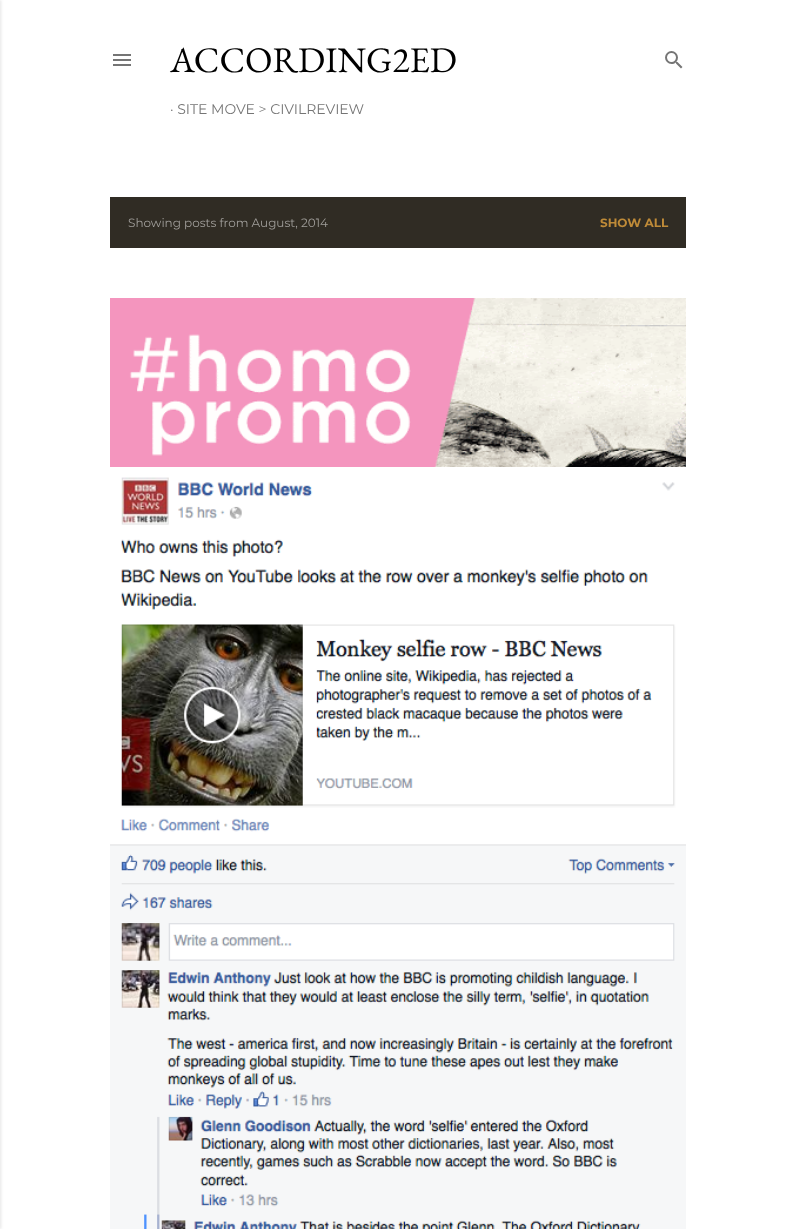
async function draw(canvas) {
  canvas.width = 796
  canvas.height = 1229
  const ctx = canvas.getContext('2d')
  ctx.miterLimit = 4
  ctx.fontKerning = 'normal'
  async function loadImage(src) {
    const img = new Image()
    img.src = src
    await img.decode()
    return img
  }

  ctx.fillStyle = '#fff'
  ctx.fillRect(0, 0, 796, 1229)
  ctx.fillStyle = '#0000001a'
  ctx.filter = 'blur(1.5px)'
  ctx.beginPath()
  ctx.rect(-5, 0, 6, 1229)
  ctx.fill()
  ctx.filter = 'none'
  ctx.drawImage(await loadImage('image0.png'), 113, 54, 18, 12)
  ctx.font = '36px EB Garamond'
  ctx.fillStyle = '#000'
  ctx.fillText('ACCORDING2ED', 170, 72)
  ctx.font = '14px Montserrat'
  ctx.fillStyle = '#757575'
  ctx.fillText('· SITE MOVE > CIVILREVIEW', 170, 114)
  ctx.drawImage(await loadImage('image1.png'), 665, 51, 18, 18)
  ctx.fillStyle = '#302c24'
  ctx.fillRect(110, 197, 576, 51)
  ctx.font = '12px Montserrat'
  ctx.fillStyle = '#a09e9a'
  ctx.fillText('Showing posts from August, 2014', 128, 227)
  ctx.font = 'bold 12px Montserrat'
  ctx.fillStyle = '#bf8b38'
  ctx.fillText('SHOW ALL', 600, 227)
  ctx.drawImage(await loadImage('image2.png'), 110, 298, 576, 169)
  ctx.drawImage(await loadImage('image3.png'), 110, 467, 576, 762)
}

draw(document.querySelector('canvas'))
